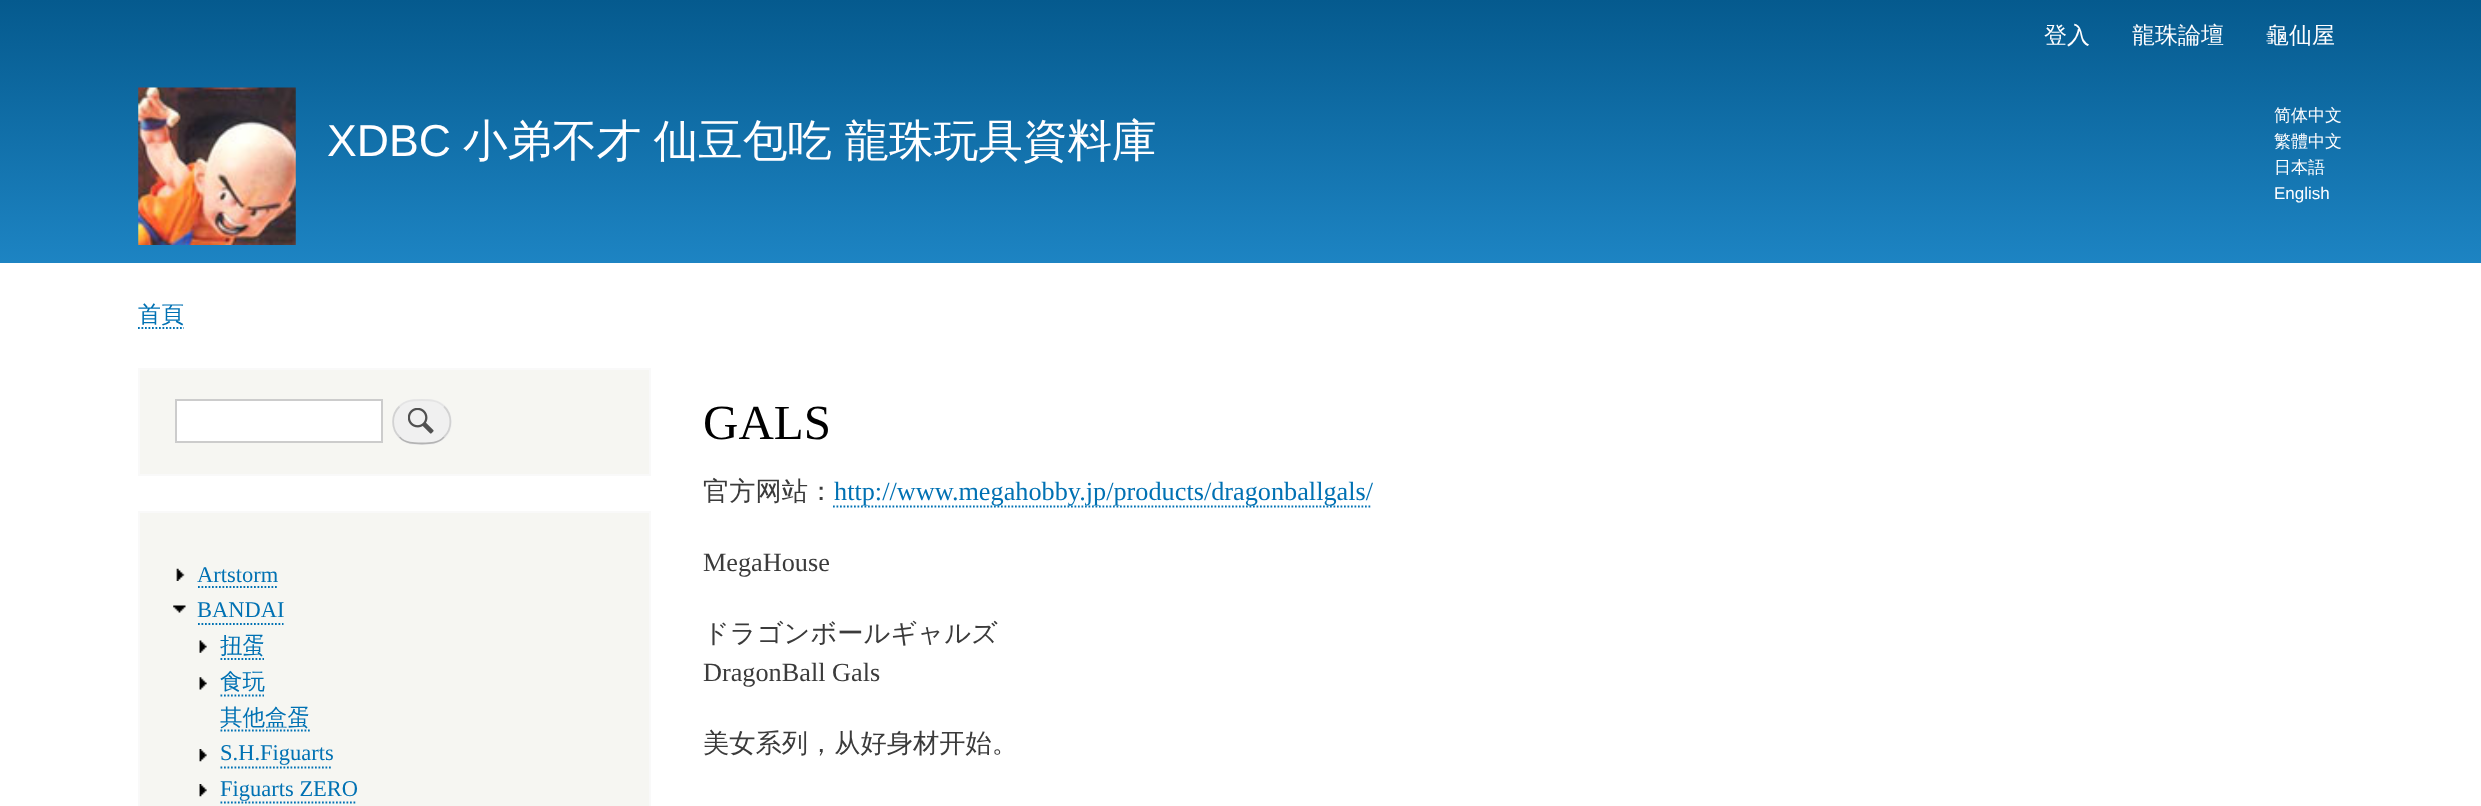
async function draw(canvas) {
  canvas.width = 2481
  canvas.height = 806
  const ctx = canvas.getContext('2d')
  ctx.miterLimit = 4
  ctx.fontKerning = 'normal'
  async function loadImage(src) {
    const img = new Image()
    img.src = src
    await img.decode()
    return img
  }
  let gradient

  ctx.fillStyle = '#fff'
  ctx.fillRect(0, 0, 2481, 806)
  gradient = ctx.createLinearGradient(1241, 0, 1241, 263)
  gradient.addColorStop(0, '#055a8e')
  gradient.addColorStop(1, '#1d84c3')
  ctx.fillStyle = gradient
  ctx.fillRect(0, 0, 2481, 263)
  ctx.font = '500 23px WenQuanYi Zen Hei'
  ctx.fillStyle = '#fffeff'
  ctx.fillText('登入', 2044, 43)
  ctx.fillText('龍珠論壇', 2132, 43)
  ctx.fillText('龜仙屋', 2266, 43)
  ctx.drawImage(await loadImage('image0.png'), 138, 87, 158, 158)
  ctx.font = '44.6px Liberation Sans'
  ctx.fillText('XDBC', 327, 156)
  ctx.wordSpacing = '-1px'
  ctx.font = '500 44.6px WenQuanYi Zen Hei'
  ctx.fillText('小弟不才 仙豆包吃 龍珠玩具資料庫', 463, 156)
  ctx.wordSpacing = '0px'
  ctx.font = '500 17px WenQuanYi Zen Hei'
  ctx.fillText('简体中文', 2274, 121)
  ctx.fillText('繁體中文', 2274, 147)
  ctx.fillText('日本語', 2274, 173)
  ctx.font = '17px Liberation Sans'
  ctx.fillText('English', 2274, 199)
  ctx.font = '500 23px WenQuanYi Zen Hei'
  ctx.fillStyle = '#0071b3'
  ctx.fillText('首頁', 138, 322)
  ctx.beginPath()
  ctx.moveTo(138, 328)
  ctx.lineTo(184, 328)
  ctx.strokeStyle = '#0071b3'
  ctx.lineWidth = 1.8
  ctx.setLineDash([1.75, 1.75])
  ctx.stroke()
  ctx.fillStyle = '#f6f6f2'
  ctx.beginPath()
  ctx.rect(139, 369, 511, 106)
  ctx.fill()
  ctx.strokeStyle = '#f9f9f9'
  ctx.lineWidth = 2
  ctx.setLineDash([])
  ctx.stroke()
  ctx.fillStyle = '#fff'
  ctx.beginPath()
  ctx.rect(176, 400, 206, 42)
  ctx.fill()
  ctx.strokeStyle = '#ccc'
  ctx.stroke()
  ctx.fillStyle = '#f0f0f0'
  ctx.beginPath()
  ctx.roundRect(392, 399, 60, 46, 23)
  ctx.fill()
  ctx.drawImage(await loadImage('image1.png'), 408, 408, 26, 26)
  ctx.beginPath()
  ctx.moveTo(399.5, 406.5)
  ctx.bezierCurveTo(405.5, 400, 413.5, 400, 422, 400)
  ctx.bezierCurveTo(430, 400, 438, 400, 444, 406.5)
  ctx.strokeStyle = '#e4e4e4'
  ctx.lineWidth = 1.8
  ctx.stroke()
  ctx.beginPath()
  ctx.moveTo(444, 406.5)
  ctx.bezierCurveTo(452.5, 414.5, 452.5, 429, 444, 437)
  ctx.strokeStyle = '#d2d2d2'
  ctx.stroke()
  ctx.beginPath()
  ctx.moveTo(444, 437)
  ctx.bezierCurveTo(438, 443.5, 430, 443.5, 422, 443.5)
  ctx.bezierCurveTo(413.5, 443.5, 405.5, 443.5, 399.5, 437)
  ctx.strokeStyle = '#b4b4b4'
  ctx.stroke()
  ctx.beginPath()
  ctx.moveTo(399.5, 437)
  ctx.bezierCurveTo(391, 429, 391, 414.5, 399.5, 406.5)
  ctx.strokeStyle = '#d2d2d2'
  ctx.stroke()
  ctx.fillStyle = '#f6f6f2'
  ctx.beginPath()
  ctx.rect(139, 512, 511, 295)
  ctx.fill()
  ctx.strokeStyle = '#f9f9f9'
  ctx.lineWidth = 2
  ctx.stroke()
  ctx.drawImage(await loadImage('image2.png'), 176, 568, 9, 13)
  ctx.font = '22.5px Liberation Serif'
  ctx.fillStyle = '#0071b3'
  ctx.fillText('Artstorm', 197, 582)
  ctx.beginPath()
  ctx.moveTo(198, 587)
  ctx.lineTo(278, 587)
  ctx.strokeStyle = '#0071b3'
  ctx.lineWidth = 1.8
  ctx.setLineDash([1.75, 1.75])
  ctx.stroke()
  ctx.drawImage(await loadImage('image3.png'), 173, 605, 13, 8)
  ctx.fillText('BANDAI', 197, 617)
  ctx.beginPath()
  ctx.moveTo(198, 624)
  ctx.lineTo(283.5, 624)
  ctx.stroke()
  ctx.drawImage(await loadImage('image4.png'), 199, 640, 8, 13)
  ctx.font = '500 22.5px WenQuanYi Zen Hei'
  ctx.fillText('扭蛋', 220, 653)
  ctx.beginPath()
  ctx.moveTo(220.5, 659)
  ctx.lineTo(264, 659)
  ctx.stroke()
  ctx.drawImage(await loadImage('image5.png'), 199, 677, 8, 13)
  ctx.fillText('食玩', 220, 689)
  ctx.beginPath()
  ctx.moveTo(220.5, 695.5)
  ctx.lineTo(264, 695.5)
  ctx.stroke()
  ctx.fillText('其他盒蛋', 220, 725)
  ctx.beginPath()
  ctx.moveTo(220.5, 730.5)
  ctx.lineTo(310, 730.5)
  ctx.stroke()
  ctx.drawImage(await loadImage('image6.png'), 199, 749, 8, 13)
  ctx.font = '22.5px Liberation Serif'
  ctx.fillText('S.H.Figuarts', 220, 760)
  ctx.beginPath()
  ctx.moveTo(220.5, 767.5)
  ctx.lineTo(332.5, 767.5)
  ctx.stroke()
  ctx.drawImage(await loadImage('image6.png'), 199, 784, 8, 13)
  ctx.fillText('Figuarts ZERO', 220, 796)
  ctx.beginPath()
  ctx.moveTo(220.5, 802.5)
  ctx.lineTo(357, 802.5)
  ctx.stroke()
  ctx.font = '49px Liberation Serif'
  ctx.fillStyle = '#000'
  ctx.fillText('GALS', 703, 439)
  ctx.font = '500 26.25px WenQuanYi Zen Hei'
  ctx.fillStyle = '#3b3b3b'
  ctx.fillText('官方网站：', 703, 500)
  ctx.beginPath()
  ctx.moveTo(833, 506.5)
  ctx.lineTo(1372, 506.5)
  ctx.stroke()
  ctx.font = '26.25px Liberation Serif'
  ctx.fillStyle = '#0071b3'
  ctx.fillText('http://www.megahobby.jp/products/dragonballgals/', 834, 500)
  ctx.fillStyle = '#3b3b3b'
  ctx.fillText('MegaHouse', 703, 571)
  ctx.font = '500 26.25px WenQuanYi Zen Hei'
  ctx.fillText('ドラゴンボールギャルズ', 703, 642)
  ctx.font = '26.25px Liberation Serif'
  ctx.fillText('DragonBall Gals', 703, 681)
  ctx.font = '500 26.25px WenQuanYi Zen Hei'
  ctx.fillText('美女系列，从好身材开始。', 703, 752)
}

draw(document.querySelector('canvas'))
